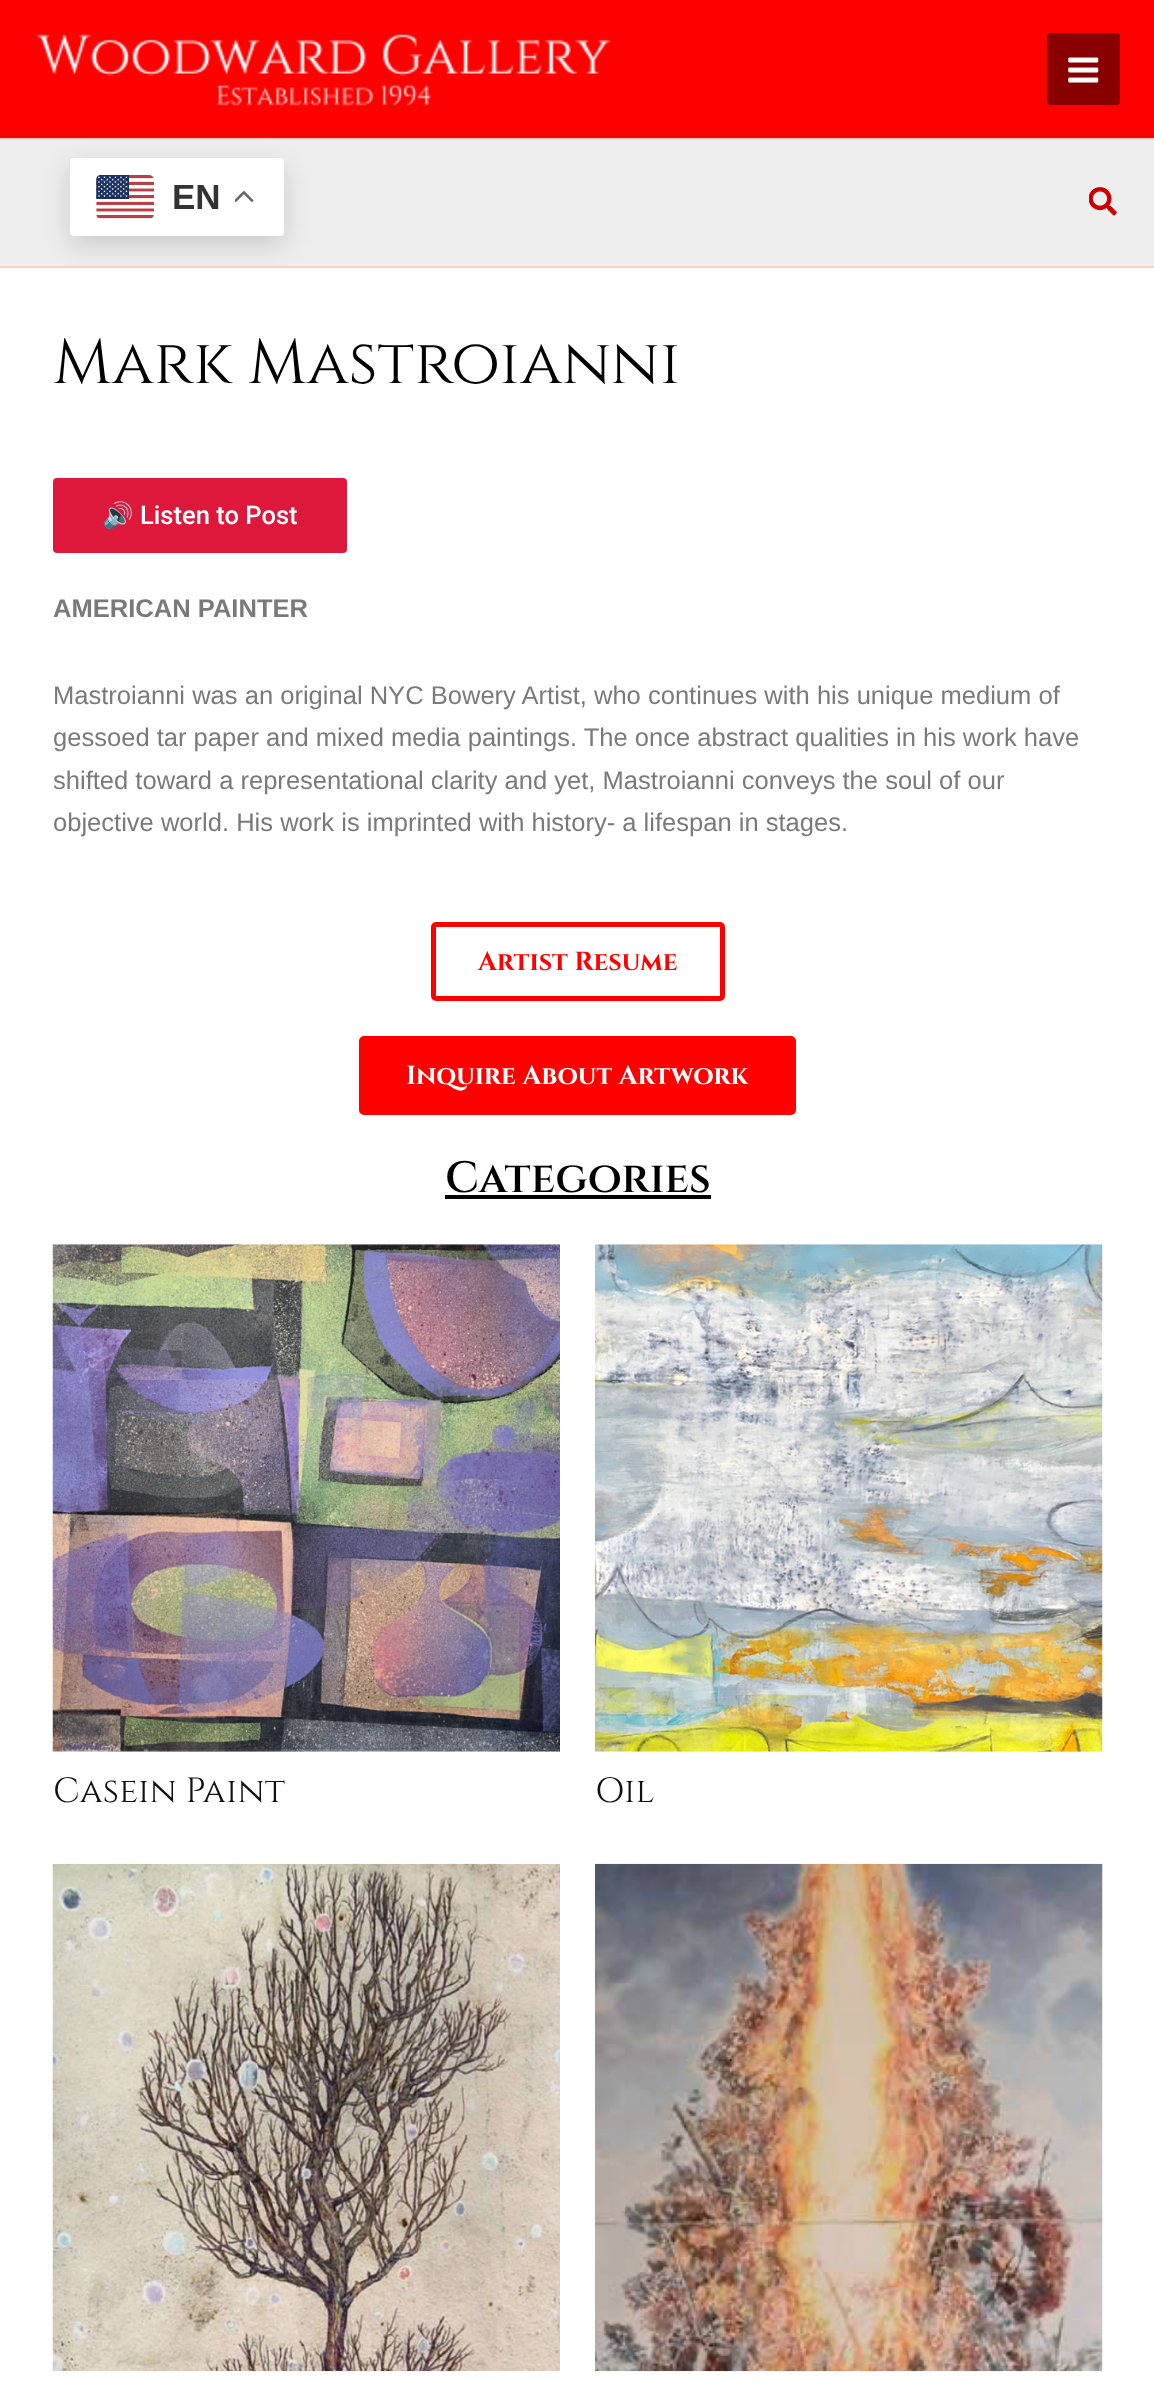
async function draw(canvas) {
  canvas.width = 1154
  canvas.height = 2395
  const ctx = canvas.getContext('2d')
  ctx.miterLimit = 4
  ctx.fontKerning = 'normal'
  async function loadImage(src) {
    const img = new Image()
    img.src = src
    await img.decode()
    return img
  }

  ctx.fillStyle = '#fff'
  ctx.fillRect(0, 0, 1154, 2395)
  ctx.fillStyle = '#eee'
  ctx.fillRect(0, 140, 1154, 126)
  ctx.fillStyle = '#ffd1bf'
  ctx.fillRect(0, 266, 1154, 2)
  ctx.fillStyle = '#00000026'
  ctx.filter = 'blur(13px)'
  ctx.beginPath()
  ctx.roundRect(70, 166, 214, 79, 4)
  ctx.fill()
  ctx.filter = 'none'
  ctx.fillStyle = '#fd0000'
  ctx.fillRect(0, 0, 1154, 138)
  ctx.fillStyle = '#ffd1bf'
  ctx.fillRect(0, 138, 1154, 2)
  ctx.drawImage(await loadImage('image0.png'), 36, 34, 575, 72)
  ctx.fillStyle = '#890000'
  ctx.beginPath()
  ctx.roundRect(1047, 33, 73, 72, 4)
  ctx.fill()
  ctx.drawImage(await loadImage('image1.png'), 1068, 57, 31, 26)
  ctx.fillStyle = '#fff'
  ctx.beginPath()
  ctx.roundRect(70, 158, 214, 78, 4)
  ctx.fill()
  ctx.drawImage(await loadImage('image2.png'), 96, 175, 58, 44)
  ctx.font = 'bold 35px Liberation Sans'
  ctx.fillStyle = '#333'
  ctx.fillText('EN', 172, 209)
  ctx.drawImage(await loadImage('image3.png'), 235, 190, 19, 12)
  ctx.drawImage(await loadImage('image4.png'), 1089, 187, 28, 29)
  ctx.font = '63px Cinzel'
  ctx.fillStyle = '#000'
  ctx.fillText('Mark Mastroianni', 53, 383)
  ctx.fillStyle = '#dd183b'
  ctx.beginPath()
  ctx.roundRect(53, 478, 294, 75, 4)
  ctx.fill()
  ctx.font = '25.55px Noto Color Emoji'
  ctx.fillStyle = '#fff'
  ctx.fillText('🔊', 102, 524)
  ctx.font = '500 25.55px Roboto'
  ctx.fillText('Listen to Post', 140, 524)
  ctx.font = 'bold 25.55px Liberation Sans'
  ctx.fillStyle = '#7a7a7a'
  ctx.fillText('AMERICAN PAINTER', 53, 617)
  ctx.font = '25.55px Liberation Sans'
  ctx.fillText('Mastroianni was an original NYC Bowery Artist, who continues with his unique medium of', 53, 704)
  ctx.fillText('gessoed tar paper and mixed media paintings. The once abstract qualities in his work have', 53, 746)
  ctx.fillText('shifted toward a representational clarity and yet, Mastroianni conveys the soul of our', 53, 789)
  ctx.fillText('objective world. His work is imprinted with history- a lifespan in stages.', 53, 831)
  ctx.beginPath()
  ctx.roundRect(433.5, 924.5, 289, 74, 2.5)
  ctx.strokeStyle = '#f00'
  ctx.lineWidth = 5
  ctx.stroke()
  ctx.font = 'bold 26.25px Cinzel'
  ctx.fillStyle = '#f00'
  ctx.fillText('Artist Resume', 478, 970)
  ctx.beginPath()
  ctx.roundRect(361.5, 1038.5, 432, 74, 2.5)
  ctx.fill()
  ctx.stroke()
  ctx.fillStyle = '#fff'
  ctx.fillText('Inquire About Artwork', 406, 1084)
  ctx.font = '600 43.75px Cinzel'
  ctx.fillStyle = '#000'
  ctx.fillText('Categories', 445, 1192)
  ctx.fillRect(445, 1195, 266, 4)
  ctx.drawImage(await loadImage('image5.png'), 52, 1244, 508, 508)
  ctx.font = '35px Cinzel'
  ctx.fillStyle = '#111'
  ctx.fillText('Casein Paint', 53, 1802)
  ctx.drawImage(await loadImage('image6.png'), 595, 1244, 508, 508)
  ctx.fillText('Oil', 595, 1802)
  ctx.drawImage(await loadImage('image7.png'), 52, 1863, 508, 509)
  ctx.drawImage(await loadImage('image8.png'), 595, 1863, 508, 509)
}

draw(document.querySelector('canvas'))
